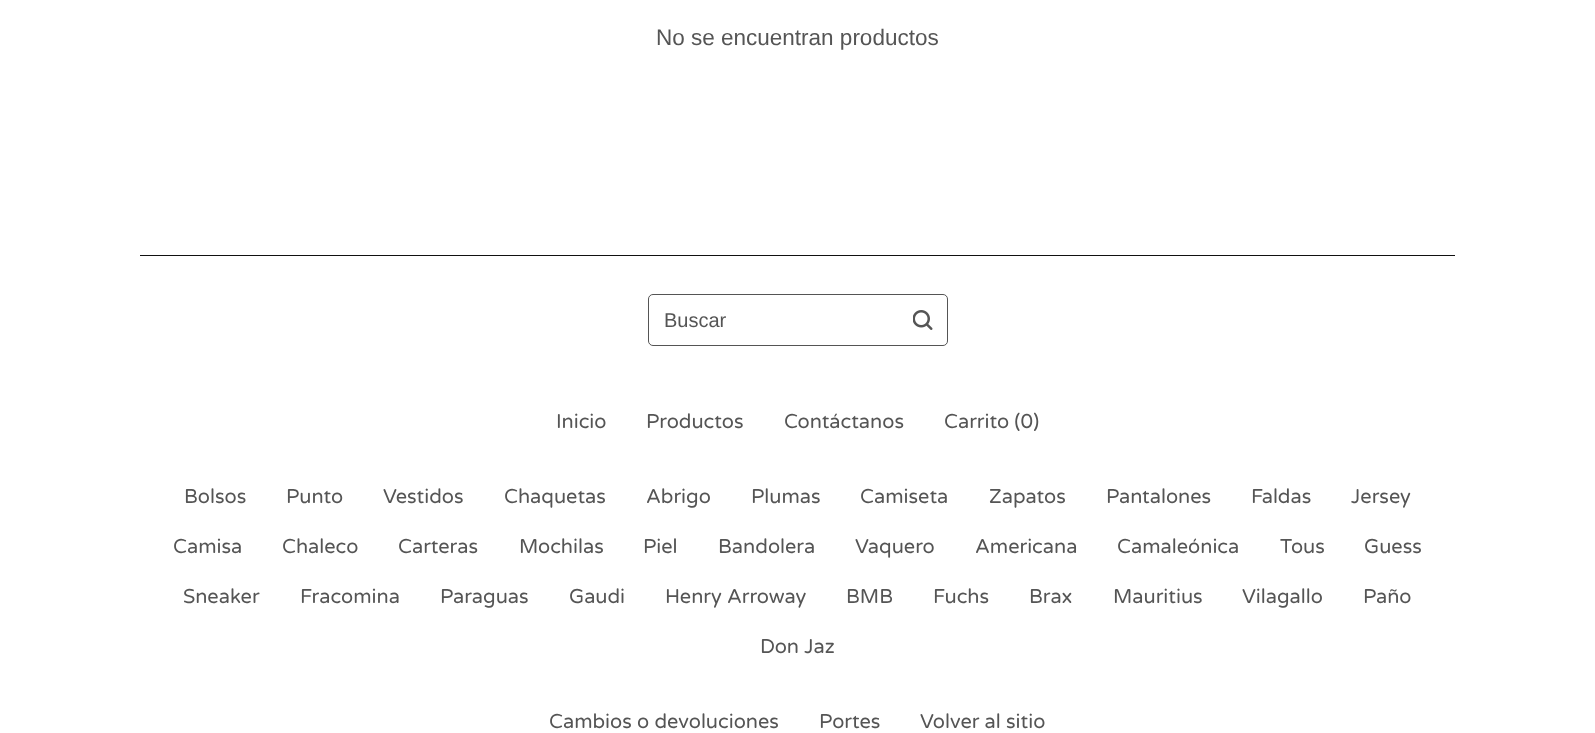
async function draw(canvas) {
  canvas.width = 1595
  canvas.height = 733
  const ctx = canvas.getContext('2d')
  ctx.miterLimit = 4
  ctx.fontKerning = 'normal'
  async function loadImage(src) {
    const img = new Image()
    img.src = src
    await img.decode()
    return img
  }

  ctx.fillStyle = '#fff'
  ctx.fillRect(0, 0, 1595, 733)
  ctx.font = '22.5px Liberation Sans'
  ctx.fillStyle = '#555'
  ctx.fillText('No se encuentran productos', 656, 45)
  ctx.fillStyle = '#111'
  ctx.fillRect(140, 255, 1315, 1)
  ctx.beginPath()
  ctx.roundRect(648.5, 294.5, 299, 51, 4.5)
  ctx.strokeStyle = '#555'
  ctx.stroke()
  ctx.font = '20px Liberation Sans'
  ctx.fillStyle = '#555'
  ctx.fillText('Buscar', 664, 327)
  ctx.drawImage(await loadImage('image0.png'), 913, 310, 20, 20)
  ctx.font = '20px Varela Round'
  ctx.fillText('Inicio', 556, 428)
  ctx.fillText('Productos', 646, 428)
  ctx.fillText('Contáctanos', 784, 428)
  ctx.fillText('Carrito (0)', 944, 428)
  ctx.fillText('Bolsos', 184, 503)
  ctx.fillText('Punto', 286, 503)
  ctx.fillText('Vestidos', 383, 503)
  ctx.fillText('Chaquetas', 504, 503)
  ctx.fillText('Abrigo', 646, 503)
  ctx.fillText('Plumas', 751, 503)
  ctx.fillText('Camiseta', 860, 503)
  ctx.fillText('Zapatos', 989, 503)
  ctx.fillText('Pantalones', 1106, 503)
  ctx.fillText('Faldas', 1251, 503)
  ctx.fillText('Jersey', 1351, 503)
  ctx.fillText('Camisa', 173, 553)
  ctx.fillText('Chaleco', 282, 553)
  ctx.fillText('Carteras', 398, 553)
  ctx.fillText('Mochilas', 519, 553)
  ctx.fillText('Piel', 643, 553)
  ctx.fillText('Bandolera', 718, 553)
  ctx.fillText('Vaquero', 855, 553)
  ctx.fillText('Americana', 975, 553)
  ctx.fillText('Camaleónica', 1117, 553)
  ctx.fillText('Tous', 1280, 553)
  ctx.fillText('Guess', 1364, 553)
  ctx.fillText('Sneaker', 183, 603)
  ctx.fillText('Fracomina', 300, 603)
  ctx.fillText('Paraguas', 440, 603)
  ctx.fillText('Gaudi', 569, 603)
  ctx.fillText('Henry Arroway', 665, 603)
  ctx.fillText('BMB', 846, 603)
  ctx.fillText('Fuchs', 933, 603)
  ctx.fillText('Brax', 1029, 603)
  ctx.fillText('Mauritius', 1113, 603)
  ctx.fillText('Vilagallo', 1242, 603)
  ctx.fillText('Paño', 1363, 603)
  ctx.fillText('Don Jaz', 760, 653)
  ctx.fillText('Cambios o devoluciones', 549, 728)
  ctx.fillText('Portes', 819, 728)
  ctx.fillText('Volver al sitio', 920, 728)
}

draw(document.querySelector('canvas'))
